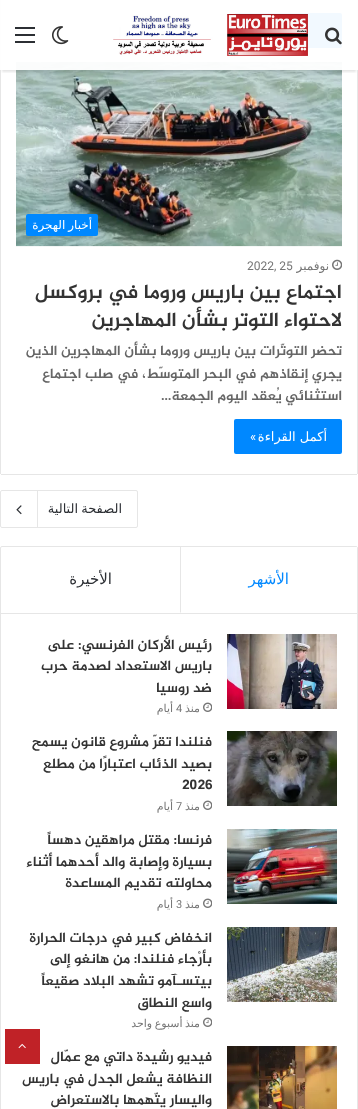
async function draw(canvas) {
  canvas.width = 358
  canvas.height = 1109
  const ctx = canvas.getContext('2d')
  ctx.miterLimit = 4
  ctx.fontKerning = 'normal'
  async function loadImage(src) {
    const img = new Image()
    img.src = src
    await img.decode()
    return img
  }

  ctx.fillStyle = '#fff'
  ctx.fillRect(0, 0, 358, 1109)
  ctx.fillStyle = '#e6e6e6'
  ctx.fillRect(357, 0, 1, 474)
  ctx.fillRect(0, 0, 1, 474)
  ctx.fillStyle = '#08f'
  ctx.beginPath()
  ctx.roundRect(234, 13, 108, 35, 2)
  ctx.fill()
  ctx.drawImage(await loadImage('image3.png'), 16, 62, 326, 185)
  ctx.save()
  ctx.beginPath()
  ctx.rect(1, 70, 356, 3)
  ctx.clip()
  ctx.fillStyle = '#0000001a'
  ctx.filter = 'blur(1px)'
  ctx.beginPath()
  ctx.rect(2, 6, 354, 66)
  ctx.fill()
  ctx.filter = 'none'
  ctx.restore()
  ctx.fillStyle = '#fffffff2'
  ctx.fillRect(0, 0, 358, 70)
  ctx.drawImage(await loadImage('image0.png'), 325, 27, 17, 18)
  ctx.drawImage(await loadImage('image1.png'), 113, 14, 195, 42)
  ctx.drawImage(await loadImage('image2.png'), 52, 26, 17, 19)
  ctx.fillStyle = '#2c2f34'
  ctx.fillRect(15, 34, 20, 2)
  ctx.fillRect(15, 27, 20, 2)
  ctx.fillRect(15, 41, 20, 2)
  ctx.fillStyle = '#e6e6e6'
  ctx.fillRect(1, 474, 356, 1)
  ctx.fillStyle = '#08f'
  ctx.beginPath()
  ctx.roundRect(26, 214, 72, 22, 2)
  ctx.fill()
  ctx.wordSpacing = '-1px'
  ctx.direction = 'rtl'
  ctx.font = '12px DejaVu Sans'
  ctx.fillStyle = '#fff'
  ctx.fillText('أخبار الهجرة', 92, 229)
  ctx.drawImage(await loadImage('image4.png'), 332, 259, 10, 11)
  ctx.wordSpacing = '0px'
  ctx.fillStyle = '#767676'
  ctx.fillText('نوفمبر', 329, 270)
  ctx.direction = 'ltr'
  ctx.font = '12px Roboto'
  ctx.fillText('2022, 25', 247, 270)
  ctx.direction = 'rtl'
  ctx.font = 'bold 20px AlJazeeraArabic'
  ctx.fillStyle = '#333'
  ctx.fillText('اجتماع بين باريس وروما في بروكسل', 342, 298)
  ctx.fillText('لاحتواء التوتر بشأن المهاجرين', 342, 326)
  ctx.font = 'bold 14px AlJazeeraArabic'
  ctx.fillStyle = '#666'
  ctx.fillText('تحضر التوتّرات بين باريس وروما بشأن المهاجرين الذين', 342, 355)
  ctx.fillText('يجري إنقاذهم في البحر المتوسّط، في صلب اجتماع', 342, 378)
  ctx.fillText('استثنائي يُعقد اليوم الجمعة…', 342, 400)
  ctx.fillStyle = '#08f'
  ctx.beginPath()
  ctx.roundRect(234, 419, 108, 35, 2)
  ctx.fill()
  ctx.font = '13px DejaVu Sans'
  ctx.fillStyle = '#fff'
  ctx.fillText('أكمل القراءة', 327, 441)
  ctx.font = '13px Roboto'
  ctx.fillText('»', 256, 441)
  ctx.beginPath()
  ctx.roundRect(0.5, 490.5, 137, 37, 1.5)
  ctx.strokeStyle = '#e6e6e6'
  ctx.stroke()
  ctx.wordSpacing = '-1px'
  ctx.font = '13px DejaVu Sans'
  ctx.fillStyle = '#2c2f34'
  ctx.fillText('الصفحة التالية', 122, 513)
  ctx.fillStyle = '#e6e6e6'
  ctx.fillRect(37, 491, 1, 36)
  ctx.drawImage(await loadImage('image5.png'), 16, 505, 6, 10)
  ctx.beginPath()
  ctx.roundRect(0.5, 546.5, 357, 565, 1.5)
  ctx.stroke()
  ctx.fillRect(1, 613, 356, 1)
  ctx.fillStyle = '#fff'
  ctx.fillRect(356, 547, 1, 1)
  ctx.fillStyle = '#e6e6e6'
  ctx.beginPath()
  ctx.moveTo(180, 613)
  ctx.lineTo(180, 547)
  ctx.lineTo(181, 547)
  ctx.lineTo(181, 612)
  ctx.closePath()
  ctx.fill()
  ctx.wordSpacing = '0px'
  ctx.font = '15px DejaVu Sans'
  ctx.fillStyle = '#08f'
  ctx.fillText('الأشهر', 289, 584)
  ctx.fillStyle = '#2c2f34'
  ctx.fillText('الأخيرة', 112, 584)
  ctx.drawImage(await loadImage('image6.png'), 227, 634, 110, 75)
  ctx.font = 'bold 14px AlJazeeraArabic'
  ctx.fillStyle = '#333'
  ctx.fillText('رئيس الأركان الفرنسي: على', 212, 649)
  ctx.fillText('باريس الاستعداد لصدمة حرب', 212, 670)
  ctx.fillText('ضد روسيا', 212, 692)
  ctx.drawImage(await loadImage('image7.png'), 203, 702, 9, 10)
  ctx.font = '11px DejaVu Sans'
  ctx.fillStyle = '#767676'
  ctx.fillText('منذ', 200, 712)
  ctx.direction = 'ltr'
  ctx.font = '11px Roboto'
  ctx.fillText('4', 176, 712)
  ctx.direction = 'rtl'
  ctx.font = '11px DejaVu Sans'
  ctx.fillText('أيام', 173, 712)
  ctx.drawImage(await loadImage('image8.png'), 227, 731, 110, 75)
  ctx.font = 'bold 14px AlJazeeraArabic'
  ctx.fillStyle = '#333'
  ctx.fillText('فنلندا تقرّ مشروع قانون يسمح', 212, 746)
  ctx.fillText('بصيد الذئاب اعتبارًا من مطلع', 212, 768)
  ctx.direction = 'ltr'
  ctx.fillText('2026', 182, 789)
  ctx.drawImage(await loadImage('image7.png'), 203, 800, 9, 10)
  ctx.direction = 'rtl'
  ctx.font = '11px DejaVu Sans'
  ctx.fillStyle = '#767676'
  ctx.fillText('منذ', 200, 810)
  ctx.direction = 'ltr'
  ctx.font = '11px Roboto'
  ctx.fillText('7', 176, 810)
  ctx.direction = 'rtl'
  ctx.font = '11px DejaVu Sans'
  ctx.fillText('أيام', 173, 810)
  ctx.drawImage(await loadImage('image9.png'), 227, 829, 110, 75)
  ctx.font = 'bold 14px AlJazeeraArabic'
  ctx.fillStyle = '#333'
  ctx.fillText('فرنسا: مقتل مراهقين دهساً', 212, 844)
  ctx.fillText('بسيارة وإصابة والد أحدهما أثناء', 212, 866)
  ctx.fillText('محاولته تقديم المساعدة', 212, 887)
  ctx.drawImage(await loadImage('image7.png'), 203, 898, 9, 10)
  ctx.font = '11px DejaVu Sans'
  ctx.fillStyle = '#767676'
  ctx.fillText('منذ', 200, 908)
  ctx.direction = 'ltr'
  ctx.font = '11px Roboto'
  ctx.fillText('3', 176, 908)
  ctx.direction = 'rtl'
  ctx.font = '11px DejaVu Sans'
  ctx.fillText('أيام', 173, 908)
  ctx.drawImage(await loadImage('image10.png'), 227, 927, 110, 75)
  ctx.font = 'bold 14px AlJazeeraArabic'
  ctx.fillStyle = '#333'
  ctx.fillText('انخفاض كبير في درجات الحرارة', 212, 942)
  ctx.fillText('بأرْجاء فنلندا: من هانغو إلى', 212, 963)
  ctx.fillText('بيتسـآمو تشهد البلاد صقيعاً', 212, 985)
  ctx.fillText('واسع النطاق', 212, 1007)
  ctx.drawImage(await loadImage('image7.png'), 203, 1017, 9, 10)
  ctx.wordSpacing = '-1px'
  ctx.font = '11px DejaVu Sans'
  ctx.fillStyle = '#767676'
  ctx.fillText('منذ أسبوع واحد', 200, 1027)
  ctx.drawImage(await loadImage('image11.png'), 227, 1046, 110, 63)
  ctx.wordSpacing = '0px'
  ctx.font = 'bold 14px AlJazeeraArabic'
  ctx.fillStyle = '#333'
  ctx.fillText('فيديو رشيدة داتي مع عمّال', 212, 1061)
  ctx.fillText('النظافة يشعل الجدل في باريس', 212, 1083)
  ctx.fillText('واليسار يتّهمها بالاستعراض', 212, 1104)
  ctx.fillStyle = '#c02227'
  ctx.fillRect(5, 1029, 35, 35)
  ctx.drawImage(await loadImage('image12.png'), 18, 1043, 8, 6)
}

draw(document.querySelector('canvas'))
